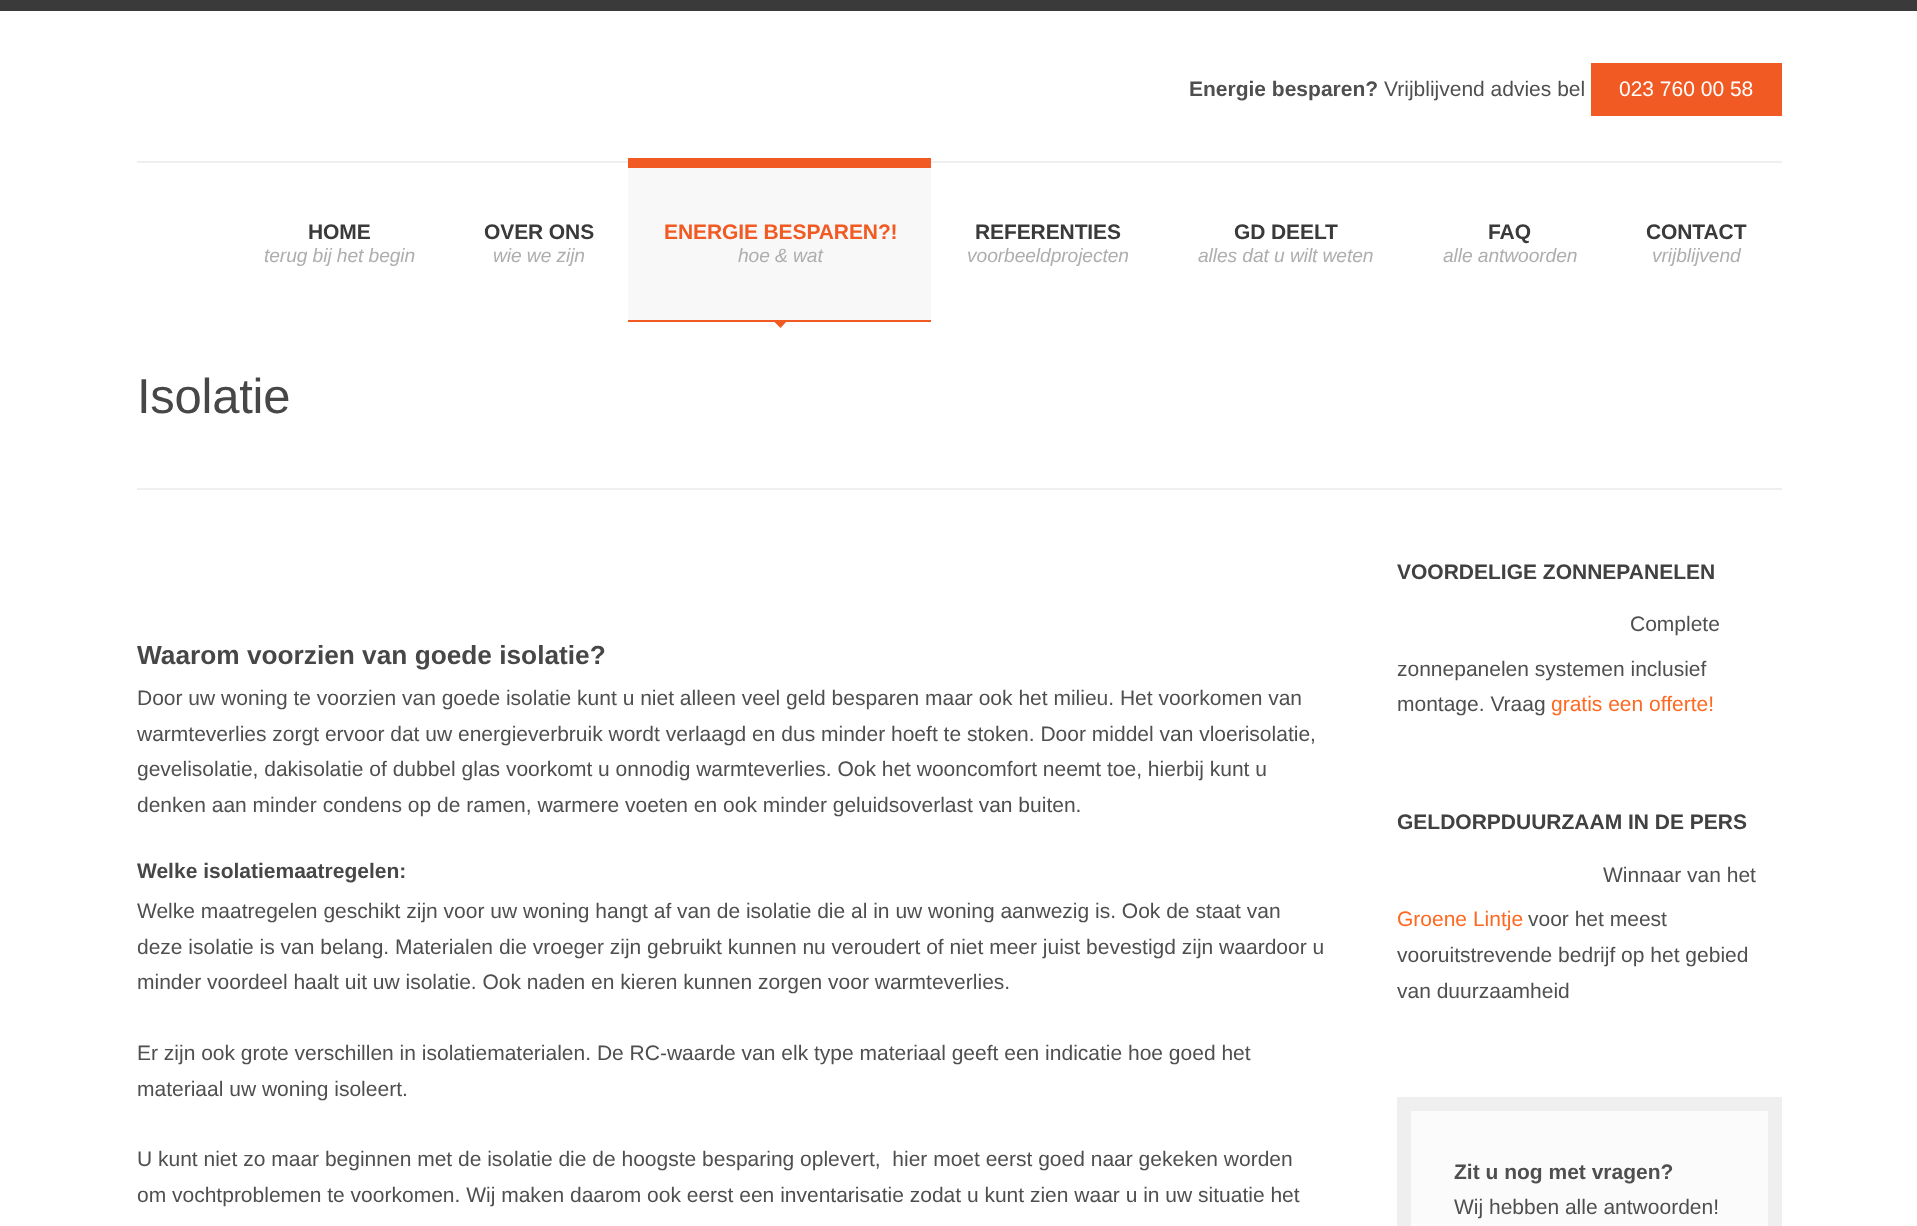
async function draw(canvas) {
  canvas.width = 1917
  canvas.height = 1226
  const ctx = canvas.getContext('2d')
  ctx.miterLimit = 4
  ctx.fontKerning = 'normal'

  ctx.fillStyle = '#fff'
  ctx.fillRect(0, 0, 1917, 1226)
  ctx.fillStyle = '#3a3a3a'
  ctx.fillRect(0, 0, 1917, 11)
  ctx.fillStyle = '#efefef'
  ctx.fillRect(137, 161, 1645, 2)
  ctx.font = 'bold 21px Liberation Sans'
  ctx.fillStyle = '#4f4f4f'
  ctx.fillText('Energie besparen?', 1189, 96)
  ctx.font = '21px Liberation Sans'
  ctx.fillText('Vrijblijvend advies bel', 1384, 96)
  ctx.fillStyle = '#f15a23'
  ctx.fillRect(1591, 63, 191, 53)
  ctx.fillStyle = '#fff'
  ctx.fillText('023 760 00 58', 1619, 96)
  ctx.letterSpacing = '-0.1px'
  ctx.font = 'bold 21px Liberation Sans'
  ctx.fillStyle = '#3a3a3a'
  ctx.fillText('HOME', 308, 239)
  ctx.font = 'italic 19.25px Liberation Sans'
  ctx.fillStyle = '#aeaeae'
  ctx.fillText('terug bij het begin', 264, 262)
  ctx.font = 'bold 21px Liberation Sans'
  ctx.fillStyle = '#3a3a3a'
  ctx.fillText('OVER ONS', 484, 239)
  ctx.font = 'italic 19.25px Liberation Sans'
  ctx.fillStyle = '#aeaeae'
  ctx.fillText('wie we zijn', 493, 262)
  ctx.fillStyle = '#f15a23'
  ctx.beginPath()
  ctx.moveTo(780.5, 315.5)
  ctx.lineTo(786.5, 321.5)
  ctx.lineTo(780.5, 328)
  ctx.lineTo(774, 321.5)
  ctx.closePath()
  ctx.fill()
  ctx.fillStyle = '#f8f8f8'
  ctx.fillRect(628, 168, 303, 152)
  ctx.fillStyle = '#f15a23'
  ctx.fillRect(628, 158, 303, 10)
  ctx.fillRect(628, 320, 303, 2)
  ctx.font = 'bold 21px Liberation Sans'
  ctx.fillText('ENERGIE BESPAREN?!', 664, 239)
  ctx.font = 'italic 19.25px Liberation Sans'
  ctx.fillStyle = '#aeaeae'
  ctx.fillText('hoe & wat', 738, 262)
  ctx.font = 'bold 21px Liberation Sans'
  ctx.fillStyle = '#3a3a3a'
  ctx.fillText('REFERENTIES', 975, 239)
  ctx.font = 'italic 19.25px Liberation Sans'
  ctx.fillStyle = '#aeaeae'
  ctx.fillText('voorbeeldprojecten', 967, 262)
  ctx.font = 'bold 21px Liberation Sans'
  ctx.fillStyle = '#3a3a3a'
  ctx.fillText('GD DEELT', 1234, 239)
  ctx.font = 'italic 19.25px Liberation Sans'
  ctx.fillStyle = '#aeaeae'
  ctx.fillText('alles dat u wilt weten', 1198, 262)
  ctx.font = 'bold 21px Liberation Sans'
  ctx.fillStyle = '#3a3a3a'
  ctx.fillText('FAQ', 1488, 239)
  ctx.font = 'italic 19.25px Liberation Sans'
  ctx.fillStyle = '#aeaeae'
  ctx.fillText('alle antwoorden', 1443, 262)
  ctx.font = 'bold 21px Liberation Sans'
  ctx.fillStyle = '#3a3a3a'
  ctx.fillText('CONTACT', 1646, 239)
  ctx.font = 'italic 19.25px Liberation Sans'
  ctx.fillStyle = '#aeaeae'
  ctx.fillText('vrijblijvend', 1652, 262)
  ctx.fillStyle = '#efefef'
  ctx.fillRect(137, 488, 1645, 2)
  ctx.letterSpacing = '-0.25px'
  ctx.font = '49px Liberation Sans'
  ctx.fillStyle = '#474747'
  ctx.fillText('Isolatie', 137, 413)
  ctx.letterSpacing = '0px'
  ctx.font = 'bold 26.25px Liberation Sans'
  ctx.fillText('Waarom voorzien van goede isolatie?', 137, 664)
  ctx.font = '21px Liberation Sans'
  ctx.fillStyle = '#4f4f4f'
  ctx.fillText('Door uw woning te voorzien van goede isolatie kunt u niet alleen veel geld besparen maar ook het milieu. Het voorkomen van', 137, 705)
  ctx.fillText('warmteverlies zorgt ervoor dat uw energieverbruik wordt verlaagd en dus minder hoeft te stoken. Door middel van vloerisolatie,', 137, 741)
  ctx.fillText('gevelisolatie, dakisolatie of dubbel glas voorkomt u onnodig warmteverlies. Ook het wooncomfort neemt toe, hierbij kunt u', 137, 776)
  ctx.fillText('denken aan minder condens op de ramen, warmere voeten en ook minder geluidsoverlast van buiten.', 137, 812)
  ctx.font = 'bold 21px Liberation Sans'
  ctx.fillStyle = '#474747'
  ctx.fillText('Welke isolatiemaatregelen:', 137, 878)
  ctx.font = '21px Liberation Sans'
  ctx.fillStyle = '#4f4f4f'
  ctx.fillText('Welke maatregelen geschikt zijn voor uw woning hangt af van de isolatie die al in uw woning aanwezig is. Ook de staat van', 137, 918)
  ctx.fillText('deze isolatie is van belang. Materialen die vroeger zijn gebruikt kunnen nu veroudert of niet meer juist bevestigd zijn waardoor u', 137, 954)
  ctx.fillText('minder voordeel haalt uit uw isolatie. Ook naden en kieren kunnen zorgen voor warmteverlies.', 137, 989)
  ctx.fillText('Er zijn ook grote verschillen in isolatiematerialen. De RC-waarde van elk type materiaal geeft een indicatie hoe goed het', 137, 1060)
  ctx.fillText('materiaal uw woning isoleert.', 137, 1096)
  ctx.fillText('U kunt niet zo maar beginnen met de isolatie die de hoogste besparing oplevert,  hier moet eerst goed naar gekeken worden', 137, 1166)
  ctx.fillText('om vochtproblemen te voorkomen. Wij maken daarom ook eerst een inventarisatie zodat u kunt zien waar u in uw situatie het', 137, 1202)
  ctx.font = 'bold 21px Liberation Sans'
  ctx.fillStyle = '#414141'
  ctx.fillText('VOORDELIGE ZONNEPANELEN', 1397, 579)
  ctx.font = '21px Liberation Sans'
  ctx.fillStyle = '#4f4f4f'
  ctx.fillText('Complete', 1630, 631)
  ctx.fillText('zonnepanelen systemen inclusief', 1397, 676)
  ctx.fillText('montage. Vraag', 1397, 711)
  ctx.fillStyle = '#ff6820'
  ctx.fillText('gratis een offerte!', 1551, 711)
  ctx.font = 'bold 21px Liberation Sans'
  ctx.fillStyle = '#414141'
  ctx.fillText('GELDORPDUURZAAM IN DE PERS', 1397, 829)
  ctx.font = '21px Liberation Sans'
  ctx.fillStyle = '#4f4f4f'
  ctx.fillText('Winnaar van het', 1603, 882)
  ctx.fillStyle = '#ff6820'
  ctx.fillText('Groene Lintje', 1397, 926)
  ctx.fillStyle = '#4f4f4f'
  ctx.fillText('voor het meest', 1528, 926)
  ctx.fillText('vooruitstrevende bedrijf op het gebied', 1397, 962)
  ctx.fillText('van duurzaamheid', 1397, 998)
  ctx.fillStyle = '#fbfbfb'
  ctx.beginPath()
  ctx.rect(1404, 1104, 371, 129)
  ctx.fill()
  ctx.strokeStyle = '#efefef'
  ctx.lineWidth = 14
  ctx.stroke()
  ctx.font = 'bold 21px Liberation Sans'
  ctx.fillStyle = '#4f4f4f'
  ctx.fillText('Zit u nog met vragen?', 1454, 1179)
  ctx.font = '21px Liberation Sans'
  ctx.fillText('Wij hebben alle antwoorden!', 1454, 1214)
}

draw(document.querySelector('canvas'))
